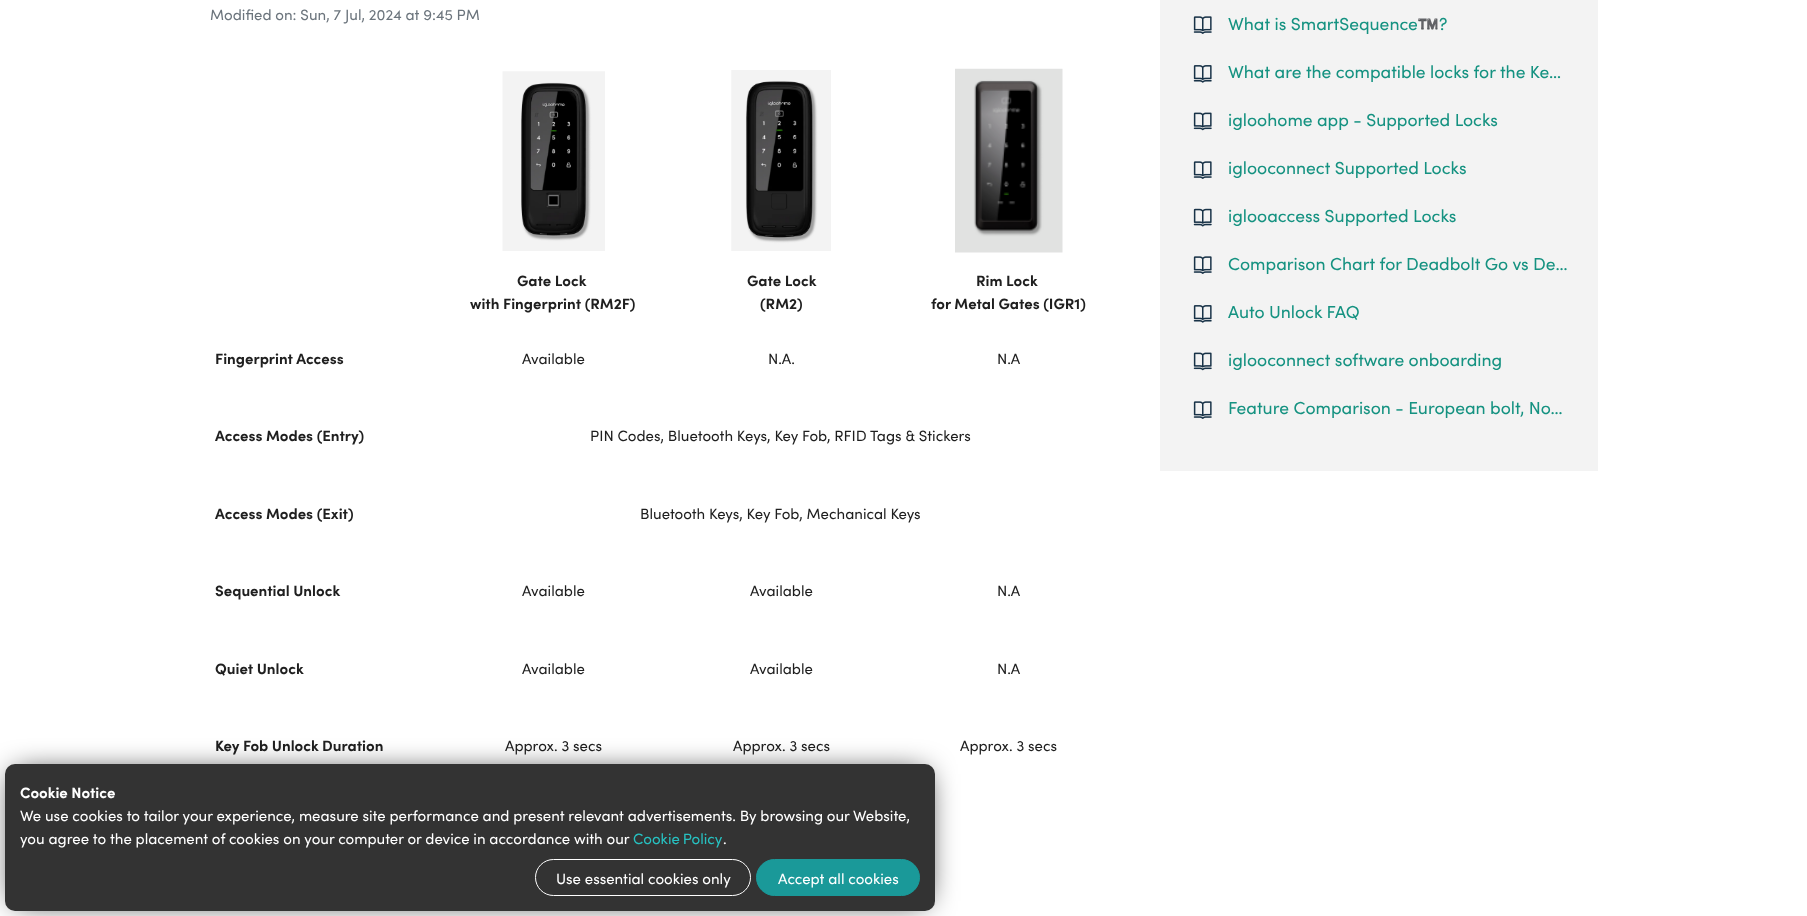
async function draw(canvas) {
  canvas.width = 1807
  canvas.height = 916
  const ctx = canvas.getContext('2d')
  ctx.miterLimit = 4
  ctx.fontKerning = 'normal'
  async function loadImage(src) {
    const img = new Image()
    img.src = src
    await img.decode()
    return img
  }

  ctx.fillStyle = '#fff'
  ctx.fillRect(0, 0, 1807, 916)
  ctx.font = '15px Sofia'
  ctx.fillStyle = '#6c757d'
  ctx.fillText('Modified on: Sun, 7 Jul, 2024 at 9:45 PM', 210, 20)
  ctx.drawImage(await loadImage('image0.png'), 502, 71, 103, 180)
  ctx.drawImage(await loadImage('image1.png'), 731, 70, 100, 181)
  ctx.drawImage(await loadImage('image2.png'), 955, 68, 108, 185)
  ctx.font = 'bold 15px Sofia'
  ctx.fillStyle = '#1f1f1f'
  ctx.fillText('Gate Lock', 517, 286)
  ctx.fillText('with Fingerprint (RM2F)', 470, 309)
  ctx.fillText('Gate Lock', 747, 286)
  ctx.fillText('(RM2)', 760, 309)
  ctx.fillText('Rim Lock', 976, 286)
  ctx.fillText('for Metal Gates (IGR1)', 931, 309)
  ctx.fillText('Fingerprint Access', 215, 364)
  ctx.font = '15px Sofia'
  ctx.fillText('Available', 522, 364)
  ctx.fillText('N.A.', 768, 364)
  ctx.fillText('N.A', 997, 364)
  ctx.font = 'bold 15px Sofia'
  ctx.fillText('Access Modes (Entry)', 215, 441)
  ctx.font = '15px Sofia'
  ctx.fillText('PIN Codes, Bluetooth Keys, Key Fob, RFID Tags & Stickers', 590, 441)
  ctx.font = 'bold 15px Sofia'
  ctx.fillText('Access Modes (Exit)', 215, 519)
  ctx.font = '15px Sofia'
  ctx.fillText('Bluetooth Keys, Key Fob, Mechanical Keys', 640, 519)
  ctx.font = 'bold 15px Sofia'
  ctx.fillText('Sequential Unlock', 215, 596)
  ctx.font = '15px Sofia'
  ctx.fillText('Available', 522, 596)
  ctx.fillText('Available', 750, 596)
  ctx.fillText('N.A', 997, 596)
  ctx.font = 'bold 15px Sofia'
  ctx.fillText('Quiet Unlock', 215, 674)
  ctx.font = '15px Sofia'
  ctx.fillText('Available', 522, 674)
  ctx.fillText('Available', 750, 674)
  ctx.fillText('N.A', 997, 674)
  ctx.font = 'bold 15px Sofia'
  ctx.fillText('Key Fob Unlock Duration', 215, 751)
  ctx.font = '15px Sofia'
  ctx.fillText('Approx. 3 secs', 505, 751)
  ctx.fillText('Approx. 3 secs', 733, 751)
  ctx.fillText('Approx. 3 secs', 960, 751)
  ctx.fillStyle = '#f3f3f3'
  ctx.fillRect(1160, 0, 438, 471)
  ctx.drawImage(await loadImage('image3.png'), 1193, 16, 19, 18)
  ctx.font = '17.5px Sofia'
  ctx.fillStyle = '#159281'
  ctx.fillText('What is SmartSequence', 1228, 30)
  ctx.font = '17.5px Noto Color Emoji'
  ctx.fillText('™️', 1417, 30)
  ctx.font = '17.5px Sofia'
  ctx.fillText('?', 1439, 30)
  ctx.drawImage(await loadImage('image4.png'), 1193, 65, 19, 18)
  ctx.fillText('What are the compatible locks for the Ke…', 1228, 78)
  ctx.drawImage(await loadImage('image5.png'), 1193, 112, 19, 19)
  ctx.fillText('igloohome app - Supported Locks', 1228, 126)
  ctx.drawImage(await loadImage('image3.png'), 1193, 161, 19, 18)
  ctx.fillText('iglooconnect Supported Locks', 1228, 174)
  ctx.drawImage(await loadImage('image6.png'), 1193, 208, 19, 19)
  ctx.fillText('iglooaccess Supported Locks', 1228, 222)
  ctx.drawImage(await loadImage('image3.png'), 1193, 256, 19, 18)
  ctx.fillText('Comparison Chart for Deadbolt Go vs De…', 1228, 270)
  ctx.drawImage(await loadImage('image4.png'), 1193, 305, 19, 18)
  ctx.fillText('Auto Unlock FAQ', 1228, 318)
  ctx.drawImage(await loadImage('image5.png'), 1193, 352, 19, 19)
  ctx.fillText('iglooconnect software onboarding', 1228, 366)
  ctx.drawImage(await loadImage('image3.png'), 1193, 401, 19, 18)
  ctx.fillText('Feature Comparison - European bolt, No…', 1228, 414)
  ctx.fillStyle = '#000'
  ctx.filter = 'blur(15px)'
  ctx.beginPath()
  ctx.rect(15, 774, 910, 127)
  ctx.fill()
  ctx.filter = 'none'
  ctx.fillStyle = '#333'
  ctx.beginPath()
  ctx.roundRect(5, 764, 930, 147, 10)
  ctx.fill()
  ctx.font = 'bold 15px Sofia'
  ctx.fillStyle = '#fff'
  ctx.fillText('Cookie Notice', 20, 798)
  ctx.font = '15px Sofia'
  ctx.fillText('We use cookies to tailor your experience, measure site performance and present relevant advertisements. By browsing our Website,', 20, 821)
  ctx.fillText('you agree to the placement of cookies on your computer or device in accordance with our', 20, 844)
  ctx.wordSpacing = '-1px'
  ctx.fillStyle = '#27c1c1'
  ctx.fillText('Cookie Policy', 633, 844)
  ctx.wordSpacing = '0px'
  ctx.fillStyle = '#fff'
  ctx.fillText('.', 723, 844)
  ctx.beginPath()
  ctx.roundRect(535.5, 859.5, 215, 36, 18)
  ctx.strokeStyle = '#fff'
  ctx.stroke()
  ctx.fillText('Use essential cookies only', 556, 884)
  ctx.fillStyle = '#1a9999'
  ctx.beginPath()
  ctx.roundRect(756.5, 859.5, 163, 36, 18)
  ctx.fill()
  ctx.strokeStyle = '#1a9999'
  ctx.stroke()
  ctx.fillStyle = '#fff'
  ctx.fillText('Accept all cookies', 778, 884)
}

draw(document.querySelector('canvas'))
